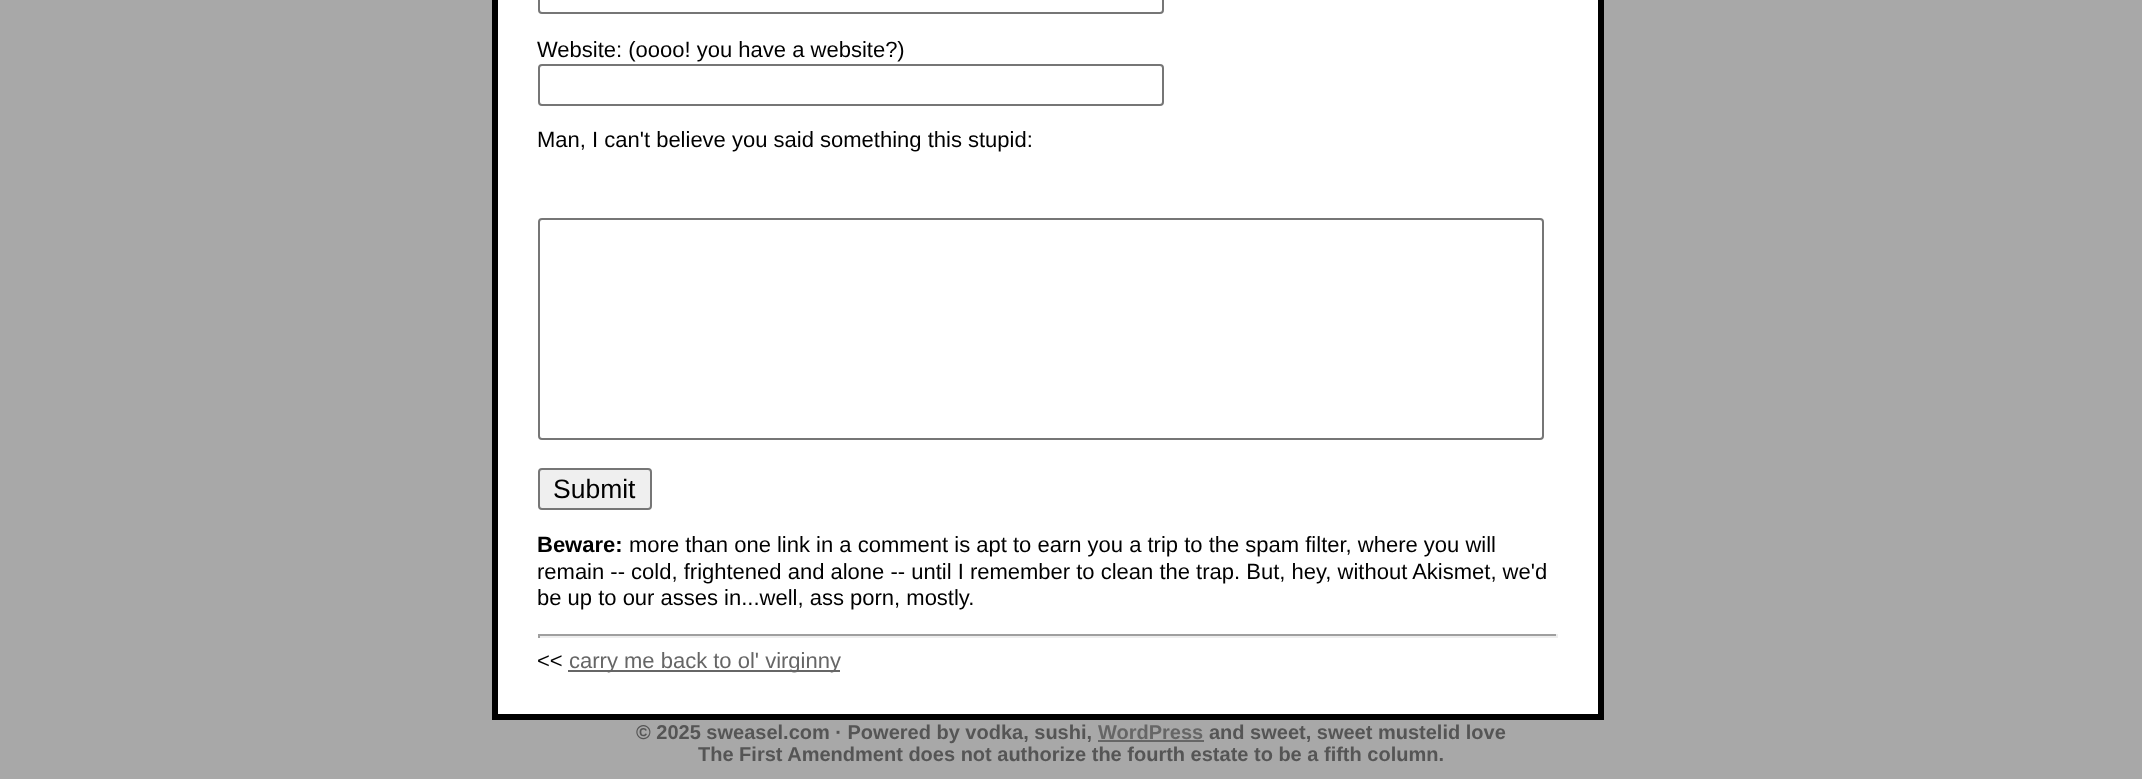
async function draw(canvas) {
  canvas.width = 2142
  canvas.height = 779
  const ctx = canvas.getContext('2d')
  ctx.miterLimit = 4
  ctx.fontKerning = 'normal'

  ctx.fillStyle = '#a8a8a8'
  ctx.fillRect(0, 0, 2142, 779)
  ctx.fillStyle = '#fff'
  ctx.beginPath()
  ctx.rect(495, -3, 1106, 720)
  ctx.fill()
  ctx.strokeStyle = '#000'
  ctx.lineWidth = 6
  ctx.stroke()
  ctx.beginPath()
  ctx.roundRect(539, -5, 624, 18, 3)
  ctx.strokeStyle = '#767676'
  ctx.lineWidth = 2
  ctx.stroke()
  ctx.font = '22px Liberation Sans'
  ctx.fillStyle = '#000'
  ctx.fillText('Website: (oooo! you have a website?)', 537, 57)
  ctx.beginPath()
  ctx.roundRect(539, 65, 624, 40, 3)
  ctx.stroke()
  ctx.fillText('Man, I can\'t believe you said something this stupid:', 537, 147)
  ctx.beginPath()
  ctx.roundRect(539, 219, 1004, 220, 3)
  ctx.stroke()
  ctx.fillStyle = '#efefef'
  ctx.beginPath()
  ctx.roundRect(539, 469, 112, 40, 3)
  ctx.fill()
  ctx.stroke()
  ctx.font = '26.5px Liberation Sans'
  ctx.fillStyle = '#000'
  ctx.fillText('Submit', 553, 498)
  ctx.font = 'bold 22px Liberation Sans'
  ctx.fillText('Beware:', 537, 552)
  ctx.font = '22px Liberation Sans'
  ctx.fillText('more than one link in a comment is apt to earn you a trip to the spam filter, where you will', 629, 552)
  ctx.fillText('remain -- cold, frightened and alone -- until I remember to clean the trap. But, hey, without Akismet, we\'d', 537, 579)
  ctx.fillText('be up to our asses in...well, ass porn, mostly.', 537, 605)
  ctx.fillStyle = '#9f9f9f'
  ctx.fillRect(538, 634, 1020, 2)
  ctx.fillStyle = '#eee'
  ctx.fillRect(1556, 634, 2, 4)
  ctx.fillRect(538, 636, 1020, 2)
  ctx.fillStyle = '#9f9f9f'
  ctx.fillRect(538, 634, 2, 4)
  ctx.fillStyle = '#000'
  ctx.fillText('<<', 537, 668)
  ctx.fillStyle = '#666'
  ctx.fillRect(568, 670, 272, 2)
  ctx.fillText('carry me back to ol\' virginny', 569, 668)
  ctx.font = 'bold 20px Liberation Sans'
  ctx.fillStyle = '#555'
  ctx.fillText('© 2025 sweasel.com · Powered by vodka, sushi,', 636, 739)
  ctx.fillStyle = '#666'
  ctx.fillText('WordPress', 1098, 739)
  ctx.fillRect(1098, 740, 106, 2)
  ctx.fillStyle = '#555'
  ctx.fillText('and sweet, sweet mustelid love', 1209, 739)
  ctx.fillText('The First Amendment does not authorize the fourth estate to be a fifth column.', 698, 761)
}

draw(document.querySelector('canvas'))
